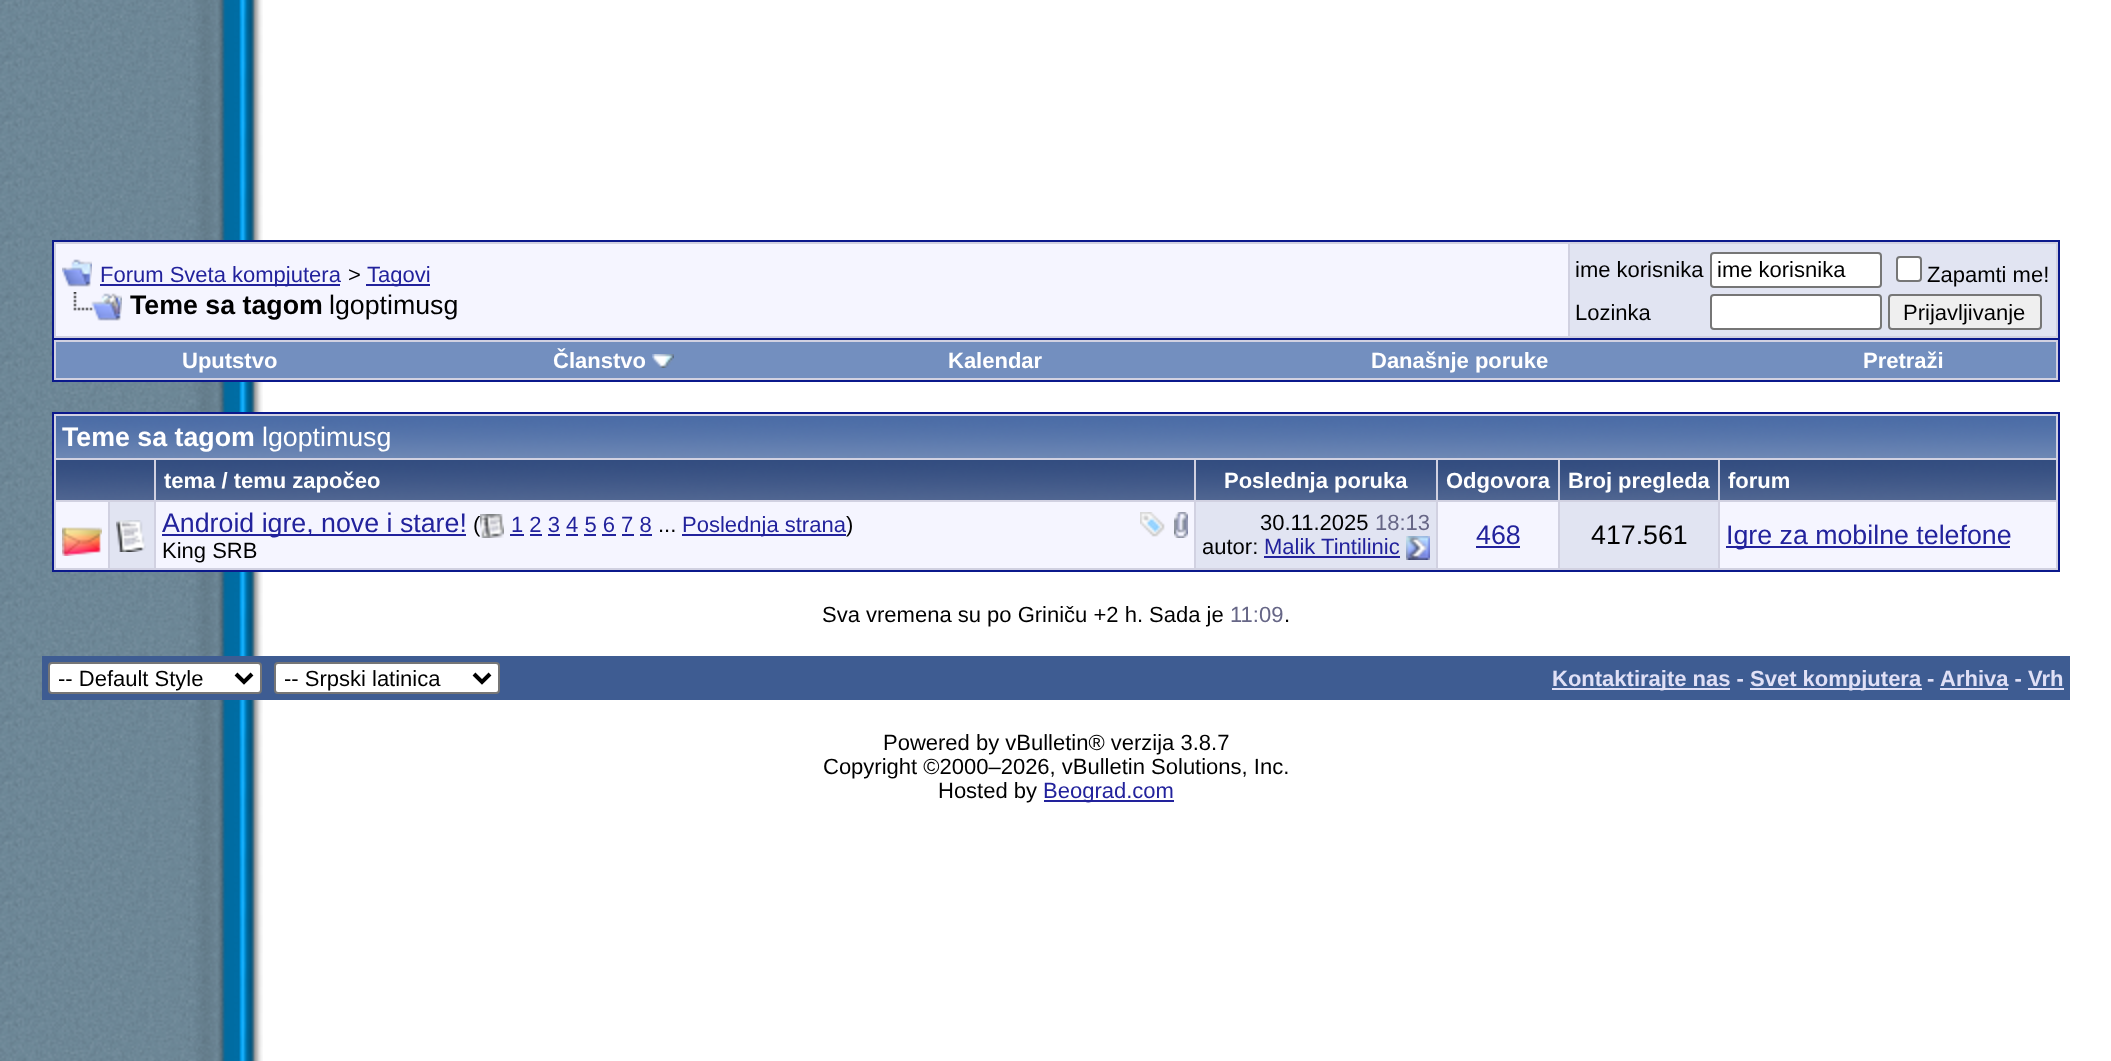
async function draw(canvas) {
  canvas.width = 2111
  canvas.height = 1061
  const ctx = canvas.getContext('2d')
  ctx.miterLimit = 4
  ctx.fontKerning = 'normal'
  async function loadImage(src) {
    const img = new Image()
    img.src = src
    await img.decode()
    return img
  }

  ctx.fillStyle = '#fff'
  ctx.fillRect(0, 0, 2111, 1061)
  ctx.drawImage(await loadImage('image0.png'), 0, 0, 263, 1061)
  ctx.fillStyle = '#d1d1e1'
  ctx.beginPath()
  ctx.rect(53, 241, 2006, 98)
  ctx.fill()
  ctx.strokeStyle = '#0b198c'
  ctx.lineWidth = 2
  ctx.stroke()
  ctx.fillStyle = '#f5f5ff'
  ctx.fillRect(56, 244, 1512, 92)
  ctx.drawImage(await loadImage('image1.png'), 62, 259, 30, 28)
  ctx.fillStyle = '#22229c'
  ctx.fillRect(100, 284, 240, 2)
  ctx.font = '22px Liberation Sans'
  ctx.fillText('Forum Sveta kompjutera', 100, 282)
  ctx.fillStyle = '#000'
  ctx.fillText('>', 348, 282)
  ctx.fillStyle = '#22229c'
  ctx.fillRect(366, 284, 64, 2)
  ctx.fillText('Tagovi', 367, 282)
  ctx.drawImage(await loadImage('image2.png'), 73, 292, 49, 29)
  ctx.font = 'bold 26.75px Liberation Sans'
  ctx.fillStyle = '#000'
  ctx.fillText('Teme sa tagom', 130, 314)
  ctx.font = '26.75px Liberation Sans'
  ctx.fillText('lgoptimusg', 329, 314)
  ctx.fillStyle = '#e1e4f2'
  ctx.fillRect(1570, 244, 486, 92)
  ctx.font = '22px Liberation Sans'
  ctx.fillStyle = '#000'
  ctx.fillText('ime korisnika', 1575, 277)
  ctx.fillStyle = '#fff'
  ctx.beginPath()
  ctx.roundRect(1711, 253, 170, 34, 3)
  ctx.fill()
  ctx.strokeStyle = '#767676'
  ctx.stroke()
  ctx.fillStyle = '#000'
  ctx.fillText('ime korisnika', 1717, 277)
  ctx.fillStyle = '#fff'
  ctx.beginPath()
  ctx.roundRect(1897, 257, 24, 24, 3)
  ctx.fill()
  ctx.stroke()
  ctx.fillStyle = '#000'
  ctx.fillText('Zapamti me!', 1927, 282)
  ctx.fillText('Lozinka', 1575, 320)
  ctx.fillStyle = '#fff'
  ctx.beginPath()
  ctx.roundRect(1711, 295, 170, 34, 3)
  ctx.fill()
  ctx.stroke()
  ctx.fillStyle = '#efefef'
  ctx.beginPath()
  ctx.roundRect(1889, 295, 152, 34, 3)
  ctx.fill()
  ctx.stroke()
  ctx.fillStyle = '#000'
  ctx.fillText('Prijavljivanje', 1903, 320)
  ctx.fillStyle = '#d1d1e1'
  ctx.fillRect(54, 340, 2004, 40)
  ctx.fillStyle = '#0b198c'
  ctx.fillRect(2058, 340, 2, 42)
  ctx.fillRect(52, 380, 2008, 2)
  ctx.fillRect(52, 340, 2, 42)
  ctx.fillStyle = '#738fbf'
  ctx.fillRect(56, 342, 2000, 36)
  ctx.font = 'bold 22px Liberation Sans'
  ctx.fillStyle = '#fff'
  ctx.fillText('Uputstvo', 182, 368)
  ctx.fillText('Članstvo', 553, 368)
  ctx.drawImage(await loadImage('image3.png'), 652, 354, 22, 14)
  ctx.fillText('Kalendar', 948, 368)
  ctx.fillText('Današnje poruke', 1371, 368)
  ctx.fillText('Pretraži', 1863, 368)
  ctx.fillStyle = '#d1d1e1'
  ctx.beginPath()
  ctx.rect(53, 413, 2006, 158)
  ctx.fill()
  ctx.strokeStyle = '#0b198c'
  ctx.stroke()
  ctx.drawImage(await loadImage('image4.png'), 56, 416, 2000, 42)
  ctx.font = 'bold 26.75px Liberation Sans'
  ctx.fillStyle = '#fff'
  ctx.fillText('Teme sa tagom', 62, 446)
  ctx.font = '26.75px Liberation Sans'
  ctx.fillText('lgoptimusg', 262, 446)
  ctx.drawImage(await loadImage('image5.png'), 56, 460, 98, 40)
  ctx.drawImage(await loadImage('image6.png'), 156, 460, 1038, 40)
  ctx.font = 'bold 22px Liberation Sans'
  ctx.fillText('tema / temu započeo', 164, 488)
  ctx.drawImage(await loadImage('image7.png'), 1196, 460, 240, 40)
  ctx.fillText('Poslednja poruka', 1224, 488)
  ctx.drawImage(await loadImage('image8.png'), 1438, 460, 120, 40)
  ctx.fillText('Odgovora', 1446, 488)
  ctx.drawImage(await loadImage('image9.png'), 1560, 460, 158, 40)
  ctx.fillText('Broj pregleda', 1568, 488)
  ctx.drawImage(await loadImage('image10.png'), 1720, 460, 336, 40)
  ctx.fillText('forum', 1728, 488)
  ctx.fillStyle = '#f5f5ff'
  ctx.fillRect(56, 502, 52, 66)
  ctx.drawImage(await loadImage('image11.png'), 62, 527, 40, 29)
  ctx.fillStyle = '#e1e4f2'
  ctx.fillRect(110, 502, 44, 66)
  ctx.drawImage(await loadImage('image12.png'), 116, 520, 30, 32)
  ctx.fillStyle = '#f5f5ff'
  ctx.fillRect(156, 502, 1038, 66)
  ctx.fillStyle = '#22229c'
  ctx.fillRect(162, 534, 304, 2)
  ctx.font = '26.75px Liberation Sans'
  ctx.fillText('Android igre, nove i stare!', 162, 532)
  ctx.font = '22px Liberation Sans'
  ctx.fillStyle = '#000'
  ctx.fillText('(', 473, 532)
  ctx.drawImage(await loadImage('image13.png'), 480, 514, 24, 24)
  ctx.fillStyle = '#22229c'
  ctx.fillText('1 2 3 4 5 6 7 8', 511, 532)
  ctx.fillRect(510, 534, 14, 2)
  ctx.fillRect(530, 534, 12, 2)
  ctx.fillRect(548, 534, 12, 2)
  ctx.fillRect(566, 534, 12, 2)
  ctx.fillRect(584, 534, 12, 2)
  ctx.fillRect(602, 534, 14, 2)
  ctx.fillRect(622, 534, 12, 2)
  ctx.fillStyle = '#000'
  ctx.fillText('...', 658, 532)
  ctx.fillStyle = '#22229c'
  ctx.fillRect(640, 534, 12, 2)
  ctx.fillRect(682, 534, 164, 2)
  ctx.fillText('Poslednja strana', 682, 532)
  ctx.fillStyle = '#000'
  ctx.fillText(')', 846, 532)
  ctx.drawImage(await loadImage('image14.png'), 1140, 512, 25, 25)
  ctx.drawImage(await loadImage('image15.png'), 1174, 512, 14, 26)
  ctx.fillText('King SRB', 162, 558)
  ctx.fillStyle = '#e1e4f2'
  ctx.fillRect(1196, 502, 240, 66)
  ctx.fillStyle = '#000'
  ctx.fillText('30.11.2025', 1260, 530)
  ctx.fillStyle = '#666686'
  ctx.fillText('18:13', 1375, 530)
  ctx.fillStyle = '#000'
  ctx.fillText('autor:', 1202, 554)
  ctx.fillStyle = '#22229c'
  ctx.fillText('Malik Tintilinic', 1264, 554)
  ctx.fillRect(1264, 556, 136, 2)
  ctx.drawImage(await loadImage('image16.png'), 1406, 536, 24, 24)
  ctx.fillStyle = '#f5f5ff'
  ctx.fillRect(1438, 502, 120, 66)
  ctx.font = '26.75px Liberation Sans'
  ctx.fillStyle = '#22229c'
  ctx.fillText('468', 1476, 544)
  ctx.fillRect(1476, 546, 44, 2)
  ctx.fillStyle = '#e1e4f2'
  ctx.fillRect(1560, 502, 158, 66)
  ctx.fillStyle = '#000'
  ctx.fillText('417.561', 1591, 544)
  ctx.fillStyle = '#f5f5ff'
  ctx.fillRect(1720, 502, 336, 66)
  ctx.fillStyle = '#22229c'
  ctx.fillRect(1726, 546, 284, 2)
  ctx.fillText('Igre za mobilne telefone', 1726, 544)
  ctx.font = '22px Liberation Sans'
  ctx.fillStyle = '#000'
  ctx.fillText('Sva vremena su po Griniču +2 h. Sada je', 822, 622)
  ctx.fillStyle = '#666686'
  ctx.fillText('11:09', 1230, 622)
  ctx.fillStyle = '#000'
  ctx.fillText('.', 1284, 622)
  ctx.fillStyle = '#3e5c92'
  ctx.fillRect(42, 656, 2028, 44)
  ctx.fillStyle = '#fff'
  ctx.beginPath()
  ctx.roundRect(49, 663, 212, 30, 3)
  ctx.fill()
  ctx.strokeStyle = '#767676'
  ctx.stroke()
  ctx.beginPath()
  ctx.moveTo(236, 674)
  ctx.lineTo(244, 682)
  ctx.lineTo(252, 674)
  ctx.strokeStyle = '#000'
  ctx.lineWidth = 4
  ctx.stroke()
  ctx.fillStyle = '#000'
  ctx.fillText('-- Default Style', 58, 686)
  ctx.fillStyle = '#fff'
  ctx.beginPath()
  ctx.roundRect(275, 663, 224, 30, 3)
  ctx.fill()
  ctx.strokeStyle = '#767676'
  ctx.lineWidth = 2
  ctx.stroke()
  ctx.beginPath()
  ctx.moveTo(474, 674)
  ctx.lineTo(482, 682)
  ctx.lineTo(490, 674)
  ctx.strokeStyle = '#000'
  ctx.lineWidth = 4
  ctx.stroke()
  ctx.fillStyle = '#000'
  ctx.fillText('-- Srpski latinica', 284, 686)
  ctx.fillStyle = '#e0e0f6'
  ctx.fillRect(1552, 688, 178, 2)
  ctx.font = 'bold 22px Liberation Sans'
  ctx.fillText('Kontaktirajte nas -', 1552, 686)
  ctx.fillRect(1750, 688, 172, 2)
  ctx.fillText('Svet kompjutera', 1750, 686)
  ctx.fillText('-', 1927, 686)
  ctx.fillText('Arhiva - Vrh', 1940, 686)
  ctx.fillRect(1940, 688, 68, 2)
  ctx.fillRect(2028, 688, 36, 2)
  ctx.font = '22px Liberation Sans'
  ctx.fillStyle = '#000'
  ctx.fillText('Powered by vBulletin® verzija 3.8.7', 883, 750)
  ctx.fillText('Copyright ©2000–2026, vBulletin Solutions, Inc.', 823, 774)
  ctx.fillText('Hosted by', 938, 798)
  ctx.fillStyle = '#22229c'
  ctx.fillRect(1044, 800, 130, 2)
  ctx.fillText('Beograd.com', 1043, 798)
}

draw(document.querySelector('canvas'))
